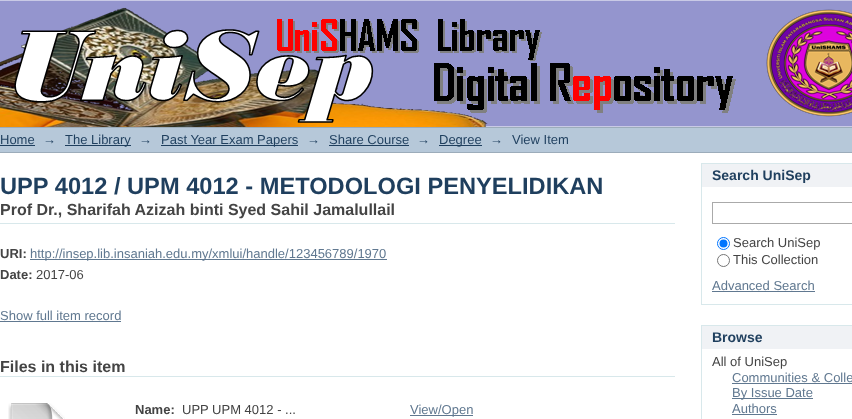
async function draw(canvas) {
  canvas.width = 852
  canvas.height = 419
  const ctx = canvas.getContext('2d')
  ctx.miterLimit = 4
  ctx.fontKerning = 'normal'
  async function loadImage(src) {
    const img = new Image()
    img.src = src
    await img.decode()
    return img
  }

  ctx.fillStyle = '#fff'
  ctx.fillRect(0, 0, 852, 419)
  ctx.drawImage(await loadImage('image0.png'), 0, 0, 852, 127)
  ctx.fillStyle = '#b6c8d9'
  ctx.fillRect(0, 128, 852, 24)
  ctx.fillStyle = '#9cacba'
  ctx.fillRect(0, 127, 852, 1)
  ctx.fillRect(0, 152, 852, 1)
  ctx.font = '13px Liberation Sans'
  ctx.fillStyle = '#1f3f5e'
  ctx.fillText('Home', 0, 144)
  ctx.fillRect(0, 145, 35, 1)
  ctx.fillText('→', 43, 144)
  ctx.fillRect(65, 145, 66, 1)
  ctx.fillText('The Library', 65, 144)
  ctx.fillText('→', 139, 144)
  ctx.fillRect(161, 145, 137, 1)
  ctx.fillText('Past Year Exam Papers', 161, 144)
  ctx.fillText('→', 307, 144)
  ctx.fillText('Share Course', 329, 144)
  ctx.fillRect(329, 145, 80, 1)
  ctx.fillText('→', 417, 144)
  ctx.fillRect(439, 145, 43, 1)
  ctx.fillText('Degree', 439, 144)
  ctx.fillText('→', 490, 144)
  ctx.fillText('View Item', 512, 144)
  ctx.font = 'bold 23.65px Liberation Sans'
  ctx.fillText('UPP 4012 / UPM 4012 - METODOLOGI PENYELIDIKAN', 0, 194)
  ctx.fillStyle = '#d8e8eb'
  ctx.fillRect(0, 223, 675, 1)
  ctx.font = 'bold 16px Liberation Sans'
  ctx.fillStyle = '#444'
  ctx.fillText('Prof Dr., Sharifah Azizah binti Syed Sahil Jamalullail', 0, 215)
  ctx.font = 'bold 13px Liberation Sans'
  ctx.fillText('URI:', 0, 258)
  ctx.fillStyle = '#607890'
  ctx.fillRect(30, 259, 357, 1)
  ctx.font = '13px Liberation Sans'
  ctx.fillText('http://insep.lib.insaniah.edu.my/xmlui/handle/123456789/1970', 30, 258)
  ctx.font = 'bold 13px Liberation Sans'
  ctx.fillStyle = '#444'
  ctx.fillText('Date:', 0, 279)
  ctx.font = '13px Liberation Sans'
  ctx.fillText('2017-06', 36, 279)
  ctx.fillStyle = '#607890'
  ctx.fillText('Show full item record', 0, 320)
  ctx.fillRect(0, 321, 121, 1)
  ctx.fillStyle = '#d8e8eb'
  ctx.fillRect(0, 376, 675, 1)
  ctx.font = 'bold 16px Liberation Sans'
  ctx.fillStyle = '#444'
  ctx.fillText('Files in this item', 0, 372)
  ctx.drawImage(await loadImage('image1.png'), 8, 403, 57, 16)
  ctx.font = 'bold 13px Liberation Sans'
  ctx.fillText('Name:', 135, 414)
  ctx.font = '13px Liberation Sans'
  ctx.fillText('UPP UPM 4012 - ...', 182, 414)
  ctx.fillStyle = '#607890'
  ctx.fillRect(410, 415, 63, 1)
  ctx.fillText('View/Open', 410, 414)
  ctx.fillStyle = '#f0f2f5'
  ctx.fillRect(702, 164, 150, 23)
  ctx.fillStyle = '#d8e8eb'
  ctx.fillRect(701, 163, 151, 1)
  ctx.fillRect(701, 163, 1, 24)
  ctx.font = 'bold 14px Liberation Sans'
  ctx.fillStyle = '#1f3f5e'
  ctx.fillText('Search UniSep', 712, 180)
  ctx.fillStyle = '#d8e8eb'
  ctx.fillRect(701, 304, 151, 1)
  ctx.fillRect(701, 187, 1, 118)
  ctx.strokeStyle = '#aaa'
  ctx.strokeRect(712.5, 202.5, 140, 21)
  ctx.beginPath()
  ctx.arc(723.5, 243.5, 6, 0, 2 * Math.PI)
  ctx.strokeStyle = '#0075ff'
  ctx.stroke()
  ctx.fillStyle = '#0075ff'
  ctx.beginPath()
  ctx.arc(723.5, 243.5, 4, 0, 2 * Math.PI)
  ctx.fill()
  ctx.font = '13px Liberation Sans'
  ctx.fillStyle = '#444'
  ctx.fillText('Search UniSep', 733, 247)
  ctx.beginPath()
  ctx.arc(723.5, 260.5, 6, 0, 2 * Math.PI)
  ctx.strokeStyle = '#767676'
  ctx.stroke()
  ctx.fillText('This Collection', 733, 264)
  ctx.fillStyle = '#607890'
  ctx.fillText('Advanced Search', 712, 290)
  ctx.fillRect(712, 291, 103, 1)
  ctx.fillStyle = '#f0f2f5'
  ctx.fillRect(702, 326, 150, 23)
  ctx.fillStyle = '#d8e8eb'
  ctx.fillRect(701, 325, 151, 1)
  ctx.fillRect(701, 325, 1, 94)
  ctx.font = 'bold 14px Liberation Sans'
  ctx.fillStyle = '#1f3f5e'
  ctx.fillText('Browse', 712, 342)
  ctx.font = '13px Liberation Sans'
  ctx.fillStyle = '#444'
  ctx.fillText('All of UniSep', 712, 366)
  ctx.fillStyle = '#607890'
  ctx.fillText('Communities & Colle', 732, 382)
  ctx.fillRect(732, 383, 120, 1)
  ctx.fillRect(732, 398, 81, 1)
  ctx.fillText('By Issue Date', 732, 397)
  ctx.fillText('Authors', 732, 413)
  ctx.fillRect(732, 414, 45, 1)
}

draw(document.querySelector('canvas'))
